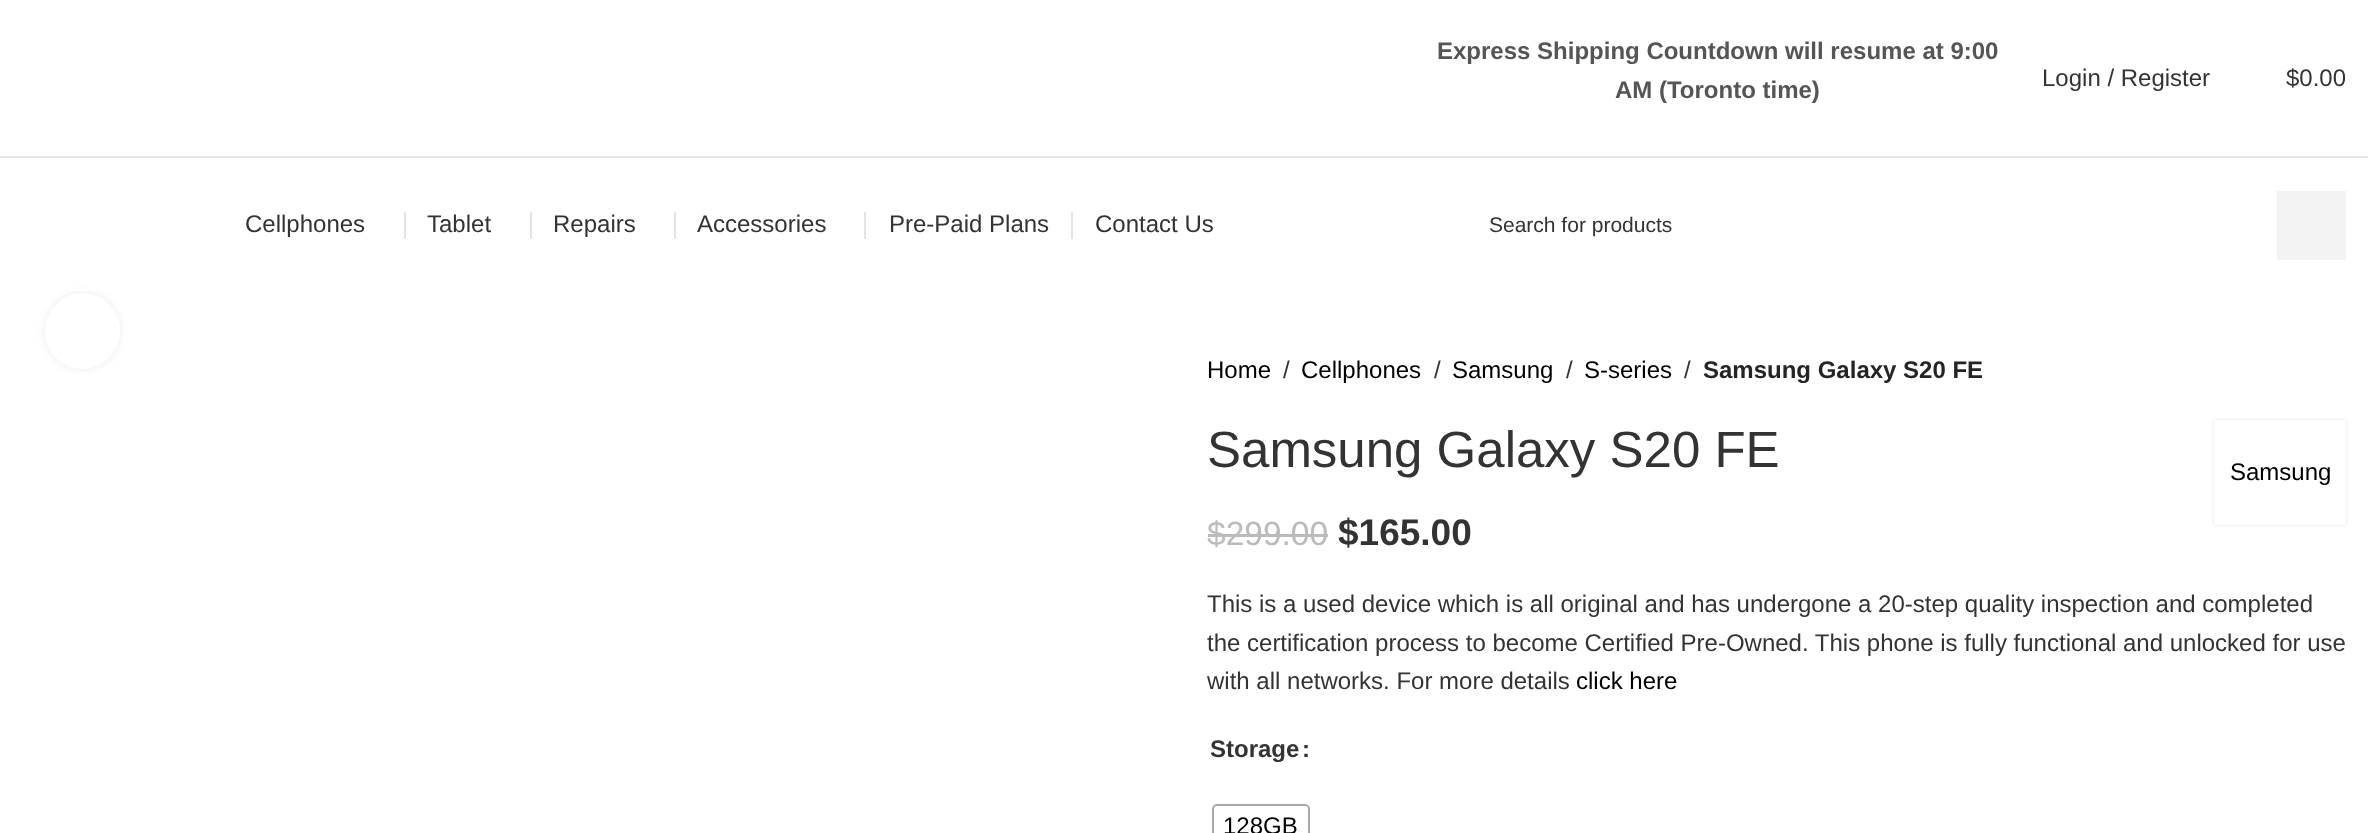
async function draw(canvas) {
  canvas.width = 2368
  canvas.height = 833
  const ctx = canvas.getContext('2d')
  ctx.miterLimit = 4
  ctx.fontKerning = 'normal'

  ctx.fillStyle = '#fff'
  ctx.fillRect(0, 0, 2368, 833)
  ctx.fillStyle = '#e6e6e6'
  ctx.fillRect(0, 156, 2368, 2)
  ctx.font = 'bold 24px Liberation Sans'
  ctx.fillStyle = '#555'
  ctx.fillText('Express Shipping Countdown will resume at 9:00', 1437, 59)
  ctx.fillText('AM (Toronto time)', 1615, 98)
  ctx.font = '24px Liberation Sans'
  ctx.fillStyle = '#333'
  ctx.fillText('Login / Register', 2042, 86)
  ctx.fillText('$0.00', 2286, 86)
  ctx.fillStyle = '#00000014'
  ctx.filter = 'blur(4px)'
  ctx.beginPath()
  ctx.roundRect(45, 293, 75, 76, 37.5)
  ctx.fill()
  ctx.filter = 'none'
  ctx.fillStyle = '#fff'
  ctx.fillRect(70, 289, 25, 2)
  ctx.fillStyle = '#333'
  ctx.fillText('Cellphones', 245, 232)
  ctx.fillStyle = '#e4e4e4'
  ctx.fillRect(404, 212, 2, 27)
  ctx.fillStyle = '#333'
  ctx.fillText('Tablet', 427, 232)
  ctx.fillStyle = '#e4e4e4'
  ctx.fillRect(530, 212, 2, 27)
  ctx.fillStyle = '#333'
  ctx.fillText('Repairs', 553, 232)
  ctx.fillStyle = '#e4e4e4'
  ctx.fillRect(674, 212, 2, 27)
  ctx.fillStyle = '#333'
  ctx.fillText('Accessories', 697, 232)
  ctx.fillStyle = '#e4e4e4'
  ctx.fillRect(864, 212, 2, 27)
  ctx.fillStyle = '#333'
  ctx.fillText('Pre-Paid Plans', 889, 232)
  ctx.fillStyle = '#e4e4e4'
  ctx.fillRect(1071, 212, 2, 27)
  ctx.fillStyle = '#333'
  ctx.fillText('Contact Us', 1095, 232)
  ctx.font = '21px Liberation Sans'
  ctx.fillText('Search for products', 1489, 232)
  ctx.fillStyle = '#f3f3f3'
  ctx.fillRect(2277, 191, 69, 69)
  ctx.fillStyle = '#fff'
  ctx.beginPath()
  ctx.roundRect(45, 293, 75, 76, 37.5)
  ctx.fill()
  ctx.font = '24px Liberation Sans'
  ctx.fillStyle = '#000'
  ctx.fillText('Home', 1207, 378)
  ctx.fillStyle = '#333'
  ctx.fillText('/', 1283, 378)
  ctx.fillStyle = '#000'
  ctx.fillText('Cellphones', 1301, 378)
  ctx.fillStyle = '#333'
  ctx.fillText('/', 1434, 378)
  ctx.fillStyle = '#000'
  ctx.fillText('Samsung', 1452, 378)
  ctx.fillStyle = '#333'
  ctx.fillText('/', 1566, 378)
  ctx.fillStyle = '#000'
  ctx.fillText('S-series', 1584, 378)
  ctx.fillStyle = '#333'
  ctx.fillText('/', 1684, 378)
  ctx.font = 'bold 24px Liberation Sans'
  ctx.fillStyle = '#242424'
  ctx.fillText('Samsung Galaxy S20 FE', 1703, 378)
  ctx.font = '51px Liberation Sans'
  ctx.fillStyle = '#333'
  ctx.fillText('Samsung Galaxy S20 FE', 1207, 467)
  ctx.save()
  ctx.beginPath()
  ctx.moveTo(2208, 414)
  ctx.lineTo(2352, 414)
  ctx.lineTo(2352, 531)
  ctx.lineTo(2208, 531)
  ctx.closePath()
  ctx.moveTo(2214, 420)
  ctx.lineTo(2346, 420)
  ctx.lineTo(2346, 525)
  ctx.lineTo(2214, 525)
  ctx.closePath()
  ctx.clip('evenodd')
  ctx.fillStyle = '#0000001f'
  ctx.filter = 'blur(1.5px)'
  ctx.beginPath()
  ctx.rect(2214, 420, 132, 105)
  ctx.fill()
  ctx.filter = 'none'
  ctx.restore()
  ctx.font = '24px Liberation Sans'
  ctx.fillStyle = '#000'
  ctx.fillText('Samsung', 2230, 480)
  ctx.font = '33.5px Liberation Sans'
  ctx.fillStyle = '#bbb'
  ctx.fillText('$299.00', 1207, 545)
  ctx.fillRect(1208, 534, 120, 3)
  ctx.font = 'bold 37px Liberation Sans'
  ctx.fillStyle = '#333'
  ctx.fillText('$165.00', 1338, 545)
  ctx.font = '24px Liberation Sans'
  ctx.fillText('This is a used device which is all original and has undergone a 20-step quality inspection and completed', 1207, 612)
  ctx.fillText('the certification process to become Certified Pre-Owned. This phone is fully functional and unlocked for use', 1207, 651)
  ctx.fillText('with all networks. For more details', 1207, 689)
  ctx.fillStyle = '#000'
  ctx.fillText('click here', 1576, 689)
  ctx.font = 'bold 24px Liberation Sans'
  ctx.fillStyle = '#333'
  ctx.fillText('Storage', 1210, 757)
  ctx.fillText(':', 1302, 757)
  ctx.beginPath()
  ctx.roundRect(1213, 805, 96, 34, 4)
  ctx.strokeStyle = '#a8a8a8'
  ctx.lineWidth = 2
  ctx.stroke()
  ctx.fillStyle = '#fff'
  ctx.beginPath()
  ctx.roundRect(1214, 806, 94, 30, 3)
  ctx.fill()
  ctx.font = '24px Liberation Sans'
  ctx.fillStyle = '#000'
  ctx.fillText('128GB', 1223, 834)
}

draw(document.querySelector('canvas'))
